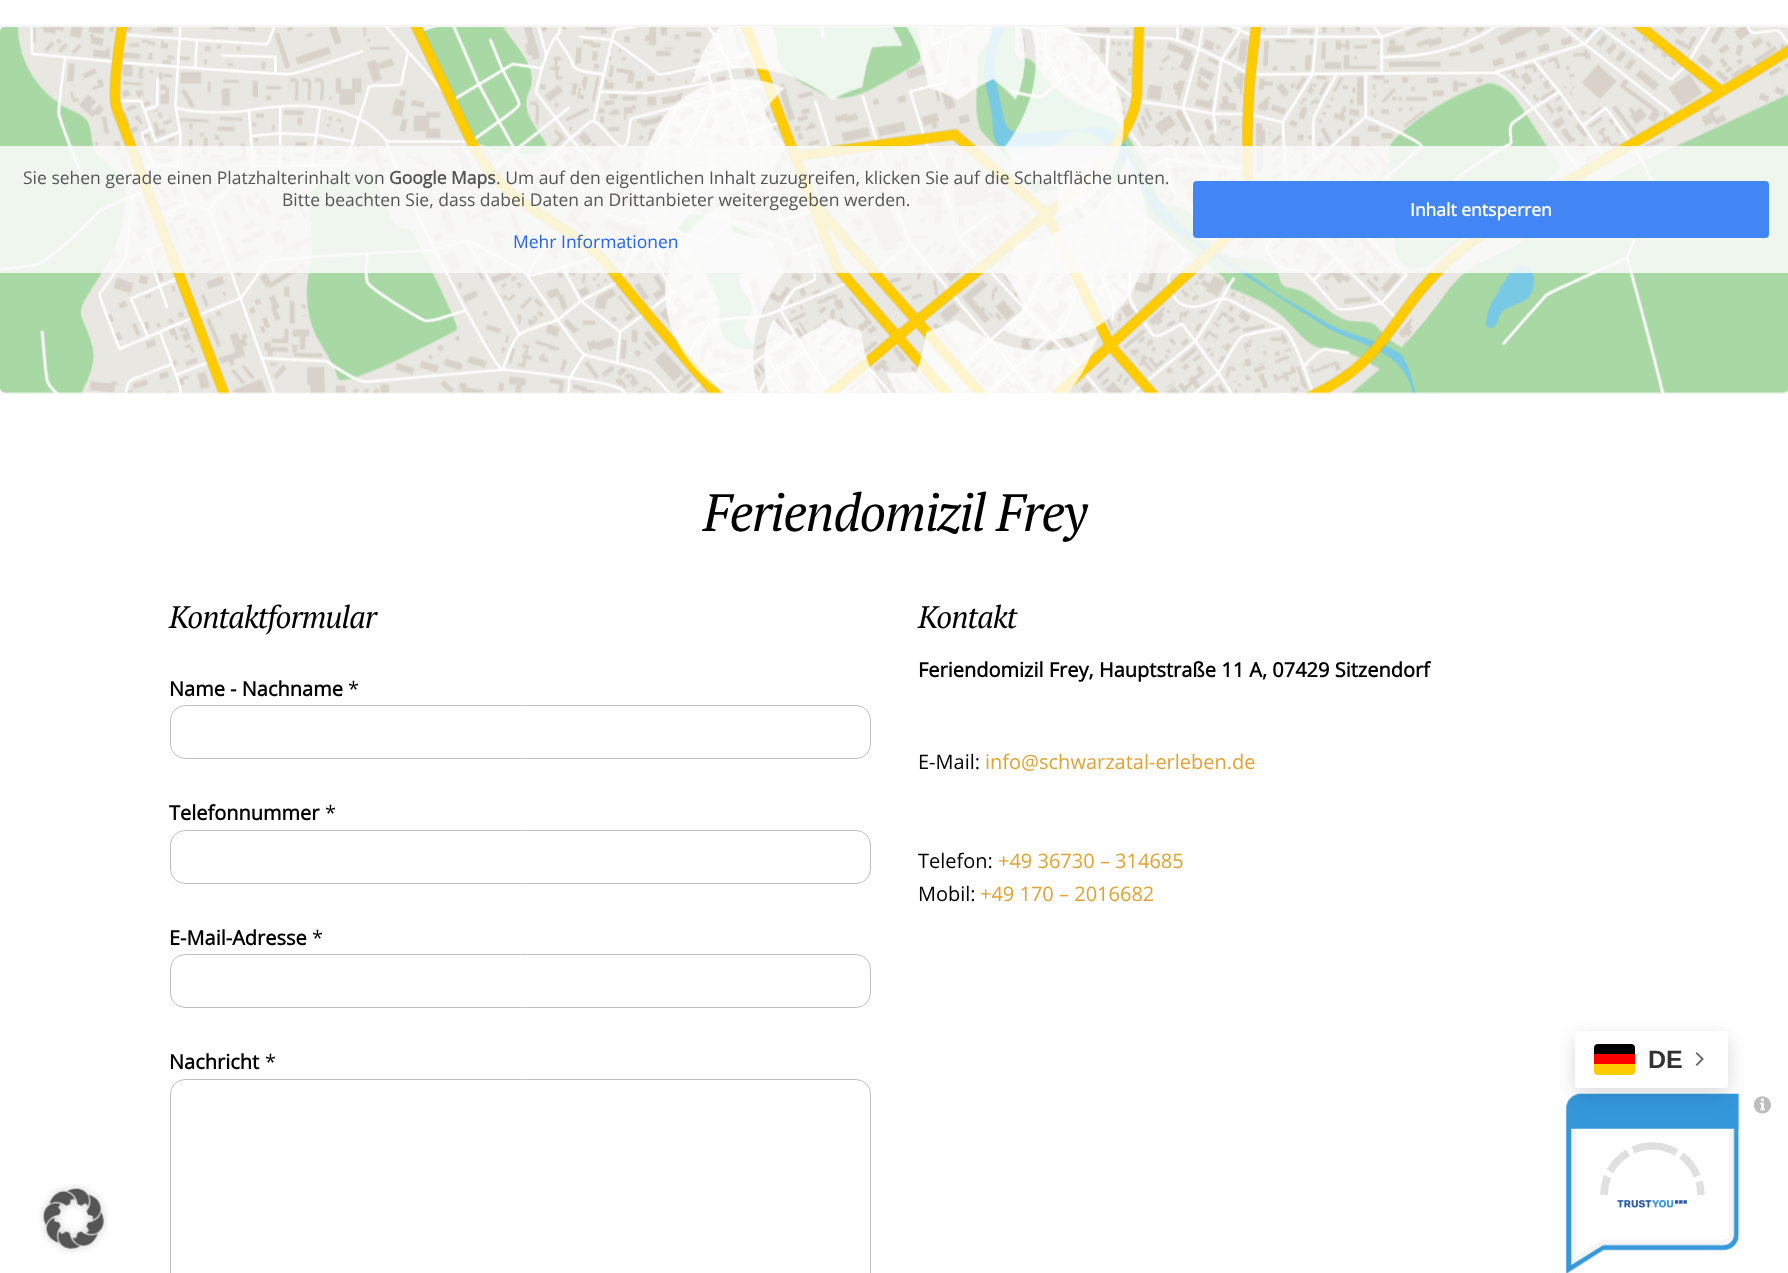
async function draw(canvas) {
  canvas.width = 1788
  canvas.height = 1273
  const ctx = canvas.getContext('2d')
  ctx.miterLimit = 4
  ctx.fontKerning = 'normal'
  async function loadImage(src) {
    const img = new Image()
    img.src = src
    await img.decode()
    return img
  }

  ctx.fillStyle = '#fff'
  ctx.fillRect(0, 0, 1788, 1273)
  ctx.fillStyle = '#f2f2f2'
  ctx.fillRect(0, 25, 1788, 1)
  ctx.fillStyle = '#fafafa'
  ctx.beginPath()
  ctx.roundRect(0, 26, 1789, 367, 5)
  ctx.fill()
  ctx.drawImage(await loadImage('image0.png'), 0, 27, 1788, 367)
  ctx.fillStyle = '#fafafad9'
  ctx.fillRect(0, 146, 1788, 127)
  ctx.font = '17.5px Open Sans'
  ctx.fillStyle = '#555'
  ctx.fillText('Sie sehen gerade einen Platzhalterinhalt von', 23, 184)
  ctx.font = 'bold 17.5px Open Sans'
  ctx.fillText('Google Maps', 389, 184)
  ctx.font = '17.5px Open Sans'
  ctx.fillText('. Um auf den eigentlichen Inhalt zuzugreifen, klicken Sie auf die Schaltfläche unten.', 496, 184)
  ctx.fillText('Bitte beachten Sie, dass dabei Daten an Drittanbieter weitergegeben werden.', 282, 206)
  ctx.fillStyle = '#2563eb'
  ctx.fillText('Mehr Informationen', 513, 248)
  ctx.fillStyle = '#4285f4'
  ctx.beginPath()
  ctx.roundRect(1193, 181, 576, 57, 4)
  ctx.fill()
  ctx.font = 'bold 17.5px Open Sans'
  ctx.fillStyle = '#fff'
  ctx.fillText('Inhalt entsperren', 1410, 216)
  ctx.letterSpacing = '-1.6px'
  ctx.font = 'italic 52.5px PT Serif'
  ctx.fillStyle = '#000'
  ctx.fillText('Feriendomizil Frey', 703, 531)
  ctx.letterSpacing = '-1px'
  ctx.font = 'italic 31.25px PT Serif'
  ctx.fillText('Kontaktformular', 169, 628)
  ctx.letterSpacing = '0px'
  ctx.font = 'bold 20px Open Sans'
  ctx.fillText('Name - Nachname', 169, 696)
  ctx.font = '20px Open Sans'
  ctx.fillText('*', 348, 696)
  ctx.beginPath()
  ctx.roundRect(170.5, 705.5, 700, 53, 14.5)
  ctx.strokeStyle = '#bfbfbf'
  ctx.stroke()
  ctx.font = 'bold 20px Open Sans'
  ctx.fillText('Telefonnummer', 169, 820)
  ctx.font = '20px Open Sans'
  ctx.fillText('*', 325, 820)
  ctx.beginPath()
  ctx.roundRect(170.5, 830.5, 700, 53, 14.5)
  ctx.stroke()
  ctx.font = 'bold 20px Open Sans'
  ctx.fillText('E-Mail-Adresse', 169, 945)
  ctx.font = '20px Open Sans'
  ctx.fillText('*', 312, 945)
  ctx.beginPath()
  ctx.roundRect(170.5, 954.5, 700, 53, 14.5)
  ctx.stroke()
  ctx.font = 'bold 20px Open Sans'
  ctx.fillText('Nachricht', 169, 1069)
  ctx.font = '20px Open Sans'
  ctx.fillText('*', 265, 1069)
  ctx.beginPath()
  ctx.roundRect(170.5, 1079.5, 700, 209, 14.5)
  ctx.stroke()
  ctx.letterSpacing = '-1px'
  ctx.font = 'italic 31.25px PT Serif'
  ctx.fillText('Kontakt', 918, 628)
  ctx.letterSpacing = '0px'
  ctx.font = 'bold 20px Open Sans'
  ctx.fillText('Feriendomizil Frey, Hauptstraße 11 A, 07429 Sitzendorf', 918, 677)
  ctx.font = '20px Open Sans'
  ctx.fillText('E-Mail:', 918, 769)
  ctx.fillStyle = '#e1a232'
  ctx.fillText('info@schwarzatal-erleben.de', 985, 769)
  ctx.fillStyle = '#000'
  ctx.fillText('Telefon:', 918, 868)
  ctx.fillStyle = '#e1a232'
  ctx.fillText('+49 36730 – 314685', 998, 868)
  ctx.fillStyle = '#000'
  ctx.fillText('Mobil:', 918, 901)
  ctx.fillStyle = '#e1a232'
  ctx.fillText('+49 170 – 2016682', 980, 901)
  ctx.drawImage(await loadImage('image3.png'), 1566, 1093, 174, 180)
  ctx.drawImage(await loadImage('image5.png'), 1754, 1096, 17, 18)
  ctx.fillStyle = '#00000026'
  ctx.filter = 'blur(9.5px)'
  ctx.beginPath()
  ctx.roundRect(1575, 1038, 153, 56, 2.5)
  ctx.fill()
  ctx.filter = 'none'
  ctx.fillStyle = '#fff'
  ctx.beginPath()
  ctx.roundRect(1575, 1031, 153, 57, 2.5)
  ctx.fill()
  ctx.fillStyle = '#fc0'
  ctx.beginPath()
  ctx.roundRect(1594, 1064, 41, 11, [0, 0, 4, 4])
  ctx.fill()
  ctx.fillStyle = '#000'
  ctx.beginPath()
  ctx.roundRect(1594, 1044, 41, 10, [4, 4, 0, 0])
  ctx.fill()
  ctx.fillStyle = '#f00'
  ctx.fillRect(1594, 1054, 41, 10)
  ctx.font = 'bold 25px Liberation Sans'
  ctx.fillStyle = '#333'
  ctx.fillText('DE', 1648, 1068)
  ctx.drawImage(await loadImage('image1.png'), 1695, 1052, 9, 14)
  ctx.drawImage(await loadImage('image2.png'), 39, 1184, 69, 69)
  ctx.save()
  ctx.beginPath()
  ctx.rect(1596, 1139, 113, 56)
  ctx.clip()
  ctx.beginPath()
  ctx.moveTo(1652.5, 1146)
  ctx.bezierCurveTo(1625.5, 1146, 1604, 1168, 1604, 1195)
  ctx.bezierCurveTo(1604, 1222, 1625.5, 1244, 1652.5, 1244)
  ctx.bezierCurveTo(1679.5, 1244, 1701, 1222, 1701, 1195)
  ctx.bezierCurveTo(1701, 1168, 1679.5, 1146, 1652.5, 1146)
  ctx.closePath()
  ctx.strokeStyle = '#e0e0e0'
  ctx.lineWidth = 7.5
  ctx.setLineDash([26.25, 5.63])
  ctx.lineDashOffset = 6.2
  ctx.stroke()
  ctx.restore()
  ctx.drawImage(await loadImage('image4.png'), 1617, 1200, 70, 8)
}

draw(document.querySelector('canvas'))
